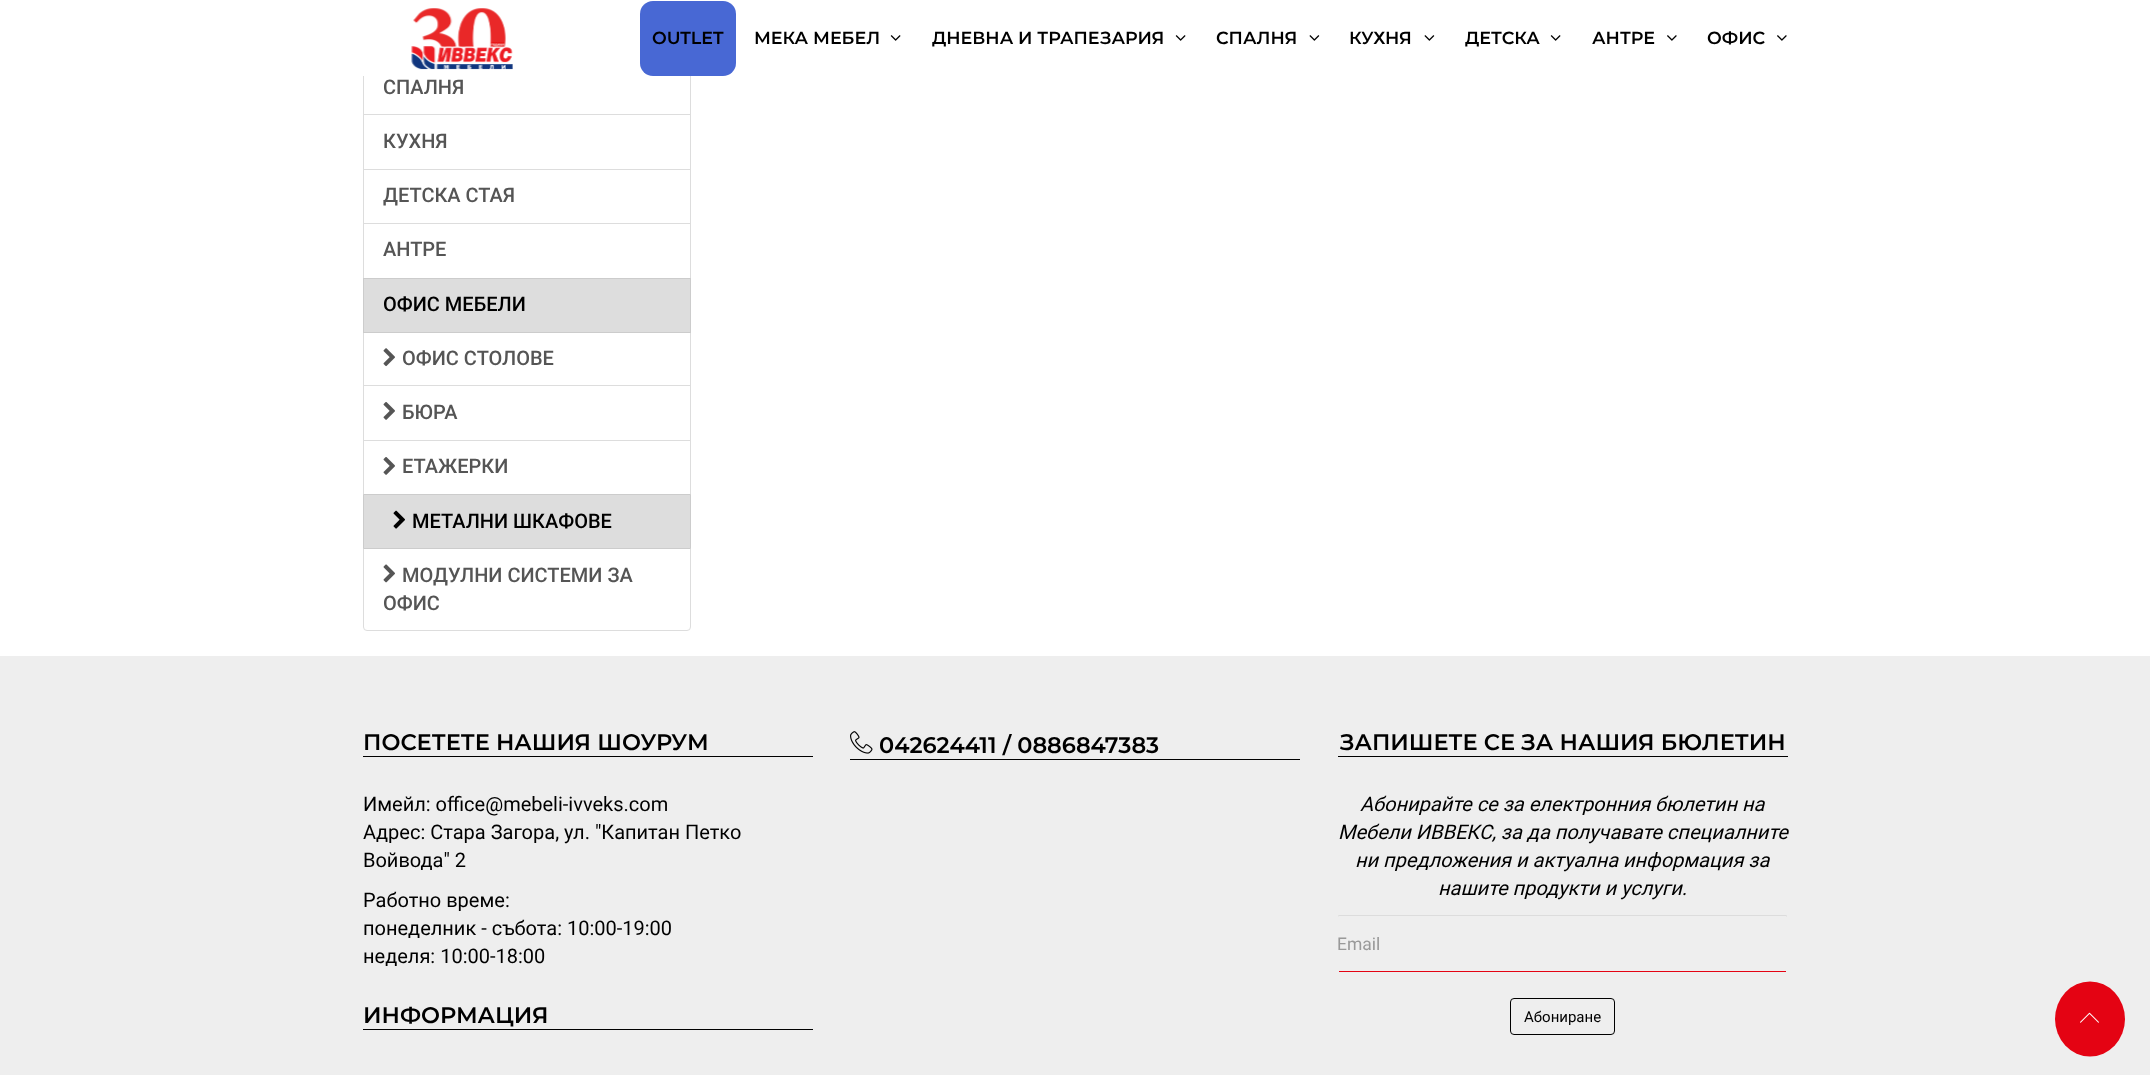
async function draw(canvas) {
  canvas.width = 2150
  canvas.height = 1075
  const ctx = canvas.getContext('2d')
  ctx.miterLimit = 4
  ctx.fontKerning = 'normal'
  async function loadImage(src) {
    const img = new Image()
    img.src = src
    await img.decode()
    return img
  }

  ctx.fillStyle = '#fff'
  ctx.fillRect(0, 0, 2150, 1075)
  ctx.strokeStyle = '#ddd'
  ctx.strokeRect(363.5, 60.5, 327, 54)
  ctx.fillRect(363, 60, 328, 16)
  ctx.drawImage(await loadImage('image0.png'), 411, 8, 102, 62)
  ctx.fillStyle = '#4868d4'
  ctx.beginPath()
  ctx.roundRect(640, 1, 96, 75, 13)
  ctx.fill()
  ctx.font = '600 17.5px Montserrat'
  ctx.fillStyle = '#000'
  ctx.fillText('OUTLET', 652, 44)
  ctx.fillText('МЕКА МЕБЕЛ', 754, 44)
  ctx.drawImage(await loadImage('image1.png'), 890, 35, 11, 6)
  ctx.fillText('ДНЕВНА И ТРАПЕЗАРИЯ', 932, 44)
  ctx.drawImage(await loadImage('image1.png'), 1175, 35, 11, 6)
  ctx.fillText('СПАЛНЯ', 1216, 44)
  ctx.drawImage(await loadImage('image2.png'), 1309, 35, 11, 6)
  ctx.fillText('КУХНЯ', 1349, 44)
  ctx.drawImage(await loadImage('image2.png'), 1424, 35, 11, 6)
  ctx.fillText('ДЕТСКА', 1465, 44)
  ctx.drawImage(await loadImage('image1.png'), 1550, 35, 11, 6)
  ctx.fillText('АНТРЕ', 1592, 44)
  ctx.drawImage(await loadImage('image3.png'), 1667, 35, 10, 6)
  ctx.fillText('ОФИС', 1707, 44)
  ctx.drawImage(await loadImage('image3.png'), 1777, 35, 10, 6)
  ctx.font = '500 20px Roboto'
  ctx.fillStyle = '#555'
  ctx.fillText('СПАЛНЯ', 383, 94)
  ctx.strokeRect(363.5, 114.5, 327, 55)
  ctx.fillText('КУХНЯ', 383, 148)
  ctx.strokeRect(363.5, 169.5, 327, 54)
  ctx.fillText('ДЕТСКА СТАЯ', 383, 202)
  ctx.strokeRect(363.5, 223.5, 327, 55)
  ctx.fillText('АНТРЕ', 383, 256)
  ctx.fillStyle = '#ddd'
  ctx.fillRect(364, 279, 326, 52)
  ctx.strokeRect(363.5, 331.5, 327, 54)
  ctx.strokeStyle = '#ccc'
  ctx.strokeRect(363.5, 278.5, 327, 54)
  ctx.fillStyle = '#000'
  ctx.fillText('ОФИС МЕБЕЛИ', 383, 311)
  ctx.drawImage(await loadImage('image4.png'), 383, 348, 12, 19)
  ctx.fillStyle = '#555'
  ctx.fillText('ОФИС СТОЛОВЕ', 402, 365)
  ctx.strokeStyle = '#ddd'
  ctx.strokeRect(363.5, 385.5, 327, 55)
  ctx.drawImage(await loadImage('image5.png'), 383, 402, 12, 18)
  ctx.fillText('БЮРА', 402, 419)
  ctx.strokeRect(363.5, 440.5, 327, 54)
  ctx.drawImage(await loadImage('image5.png'), 383, 457, 12, 18)
  ctx.fillText('ЕТАЖЕРКИ', 402, 473)
  ctx.beginPath()
  ctx.roundRect(363.5, 548.5, 327, 82, [0, 0, 3.5, 3.5])
  ctx.stroke()
  ctx.fillStyle = '#ddd'
  ctx.beginPath()
  ctx.rect(363.5, 494.5, 327, 54)
  ctx.fill()
  ctx.strokeStyle = '#ccc'
  ctx.stroke()
  ctx.drawImage(await loadImage('image6.png'), 393, 510, 12, 19)
  ctx.fillStyle = '#000'
  ctx.fillText('МЕТАЛНИ ШКАФОВЕ', 412, 528)
  ctx.drawImage(await loadImage('image7.png'), 383, 564, 12, 19)
  ctx.fillStyle = '#555'
  ctx.fillText('МОДУЛНИ СИСТЕМИ ЗА', 402, 582)
  ctx.fillText('ОФИС', 383, 610)
  ctx.fillStyle = '#eee'
  ctx.fillRect(0, 656, 2150, 419)
  ctx.fillStyle = '#000'
  ctx.fillRect(363, 756, 450, 1)
  ctx.font = '600 22.5px Montserrat'
  ctx.fillText('ПОСЕТЕТЕ НАШИЯ ШОУРУМ', 363, 750)
  ctx.font = '20px Roboto'
  ctx.fillText('Имейл: office@mebeli-ivveks.com', 363, 811)
  ctx.fillText('Адрес: Стара Загора, ул. "Капитан Петко', 363, 839)
  ctx.fillText('Войвода" 2', 363, 867)
  ctx.fillText('Работно време:', 363, 907)
  ctx.fillText('понеделник - събота: 10:00-19:00', 363, 935)
  ctx.fillText('неделя: 10:00-18:00', 363, 963)
  ctx.fillRect(363, 1029, 450, 1)
  ctx.font = '600 22.5px Montserrat'
  ctx.fillText('ИНФОРМАЦИЯ', 363, 1023)
  ctx.fillRect(850, 759, 450, 1)
  ctx.drawImage(await loadImage('image8.png'), 850, 731, 23, 23)
  ctx.fillText('042624411 / 0886847383', 879, 753)
  ctx.fillRect(1338, 756, 450, 1)
  ctx.fillText('ЗАПИШЕТЕ СЕ ЗА НАШИЯ БЮЛЕТИН', 1340, 750)
  ctx.font = 'italic 20px Roboto'
  ctx.fillText('Абонирайте се за електронния бюлетин на', 1360, 811)
  ctx.fillText('Мебели ИВВЕКС, за да получавате специалните', 1338, 839)
  ctx.fillText('ни предложения и актуална информация за', 1355, 867)
  ctx.fillText('нашите продукти и услуги.', 1438, 895)
  ctx.fillStyle = '#dcdcdc'
  ctx.beginPath()
  ctx.moveTo(1339, 916)
  ctx.lineTo(1786, 916)
  ctx.lineTo(1787, 917)
  ctx.bezierCurveTo(1787, 916, 1787, 915, 1786, 915)
  ctx.lineTo(1339, 915)
  ctx.bezierCurveTo(1338, 915, 1338, 916, 1338, 917)
  ctx.lineTo(1338, 971)
  ctx.lineTo(1338, 918)
  ctx.bezierCurveTo(1338, 917, 1338, 916, 1339, 916)
  ctx.closePath()
  ctx.fill()
  ctx.fillStyle = '#e40313'
  ctx.fillRect(1339, 971, 447, 1)
  ctx.font = '17.5px Roboto'
  ctx.fillStyle = '#999'
  ctx.fillText('Email', 1337, 950)
  ctx.beginPath()
  ctx.roundRect(1510.5, 998.5, 104, 36, 3.5)
  ctx.strokeStyle = '#000'
  ctx.stroke()
  ctx.font = '15px Roboto'
  ctx.fillStyle = '#000'
  ctx.fillText('Абониране', 1524, 1022)
  ctx.fillStyle = '#e40313'
  ctx.beginPath()
  ctx.ellipse(2090, 1019, 35, 37.5, 0, 0, 2 * Math.PI)
  ctx.fill()
  ctx.drawImage(await loadImage('image9.png'), 2080, 1012, 19, 11)
}

draw(document.querySelector('canvas'))
